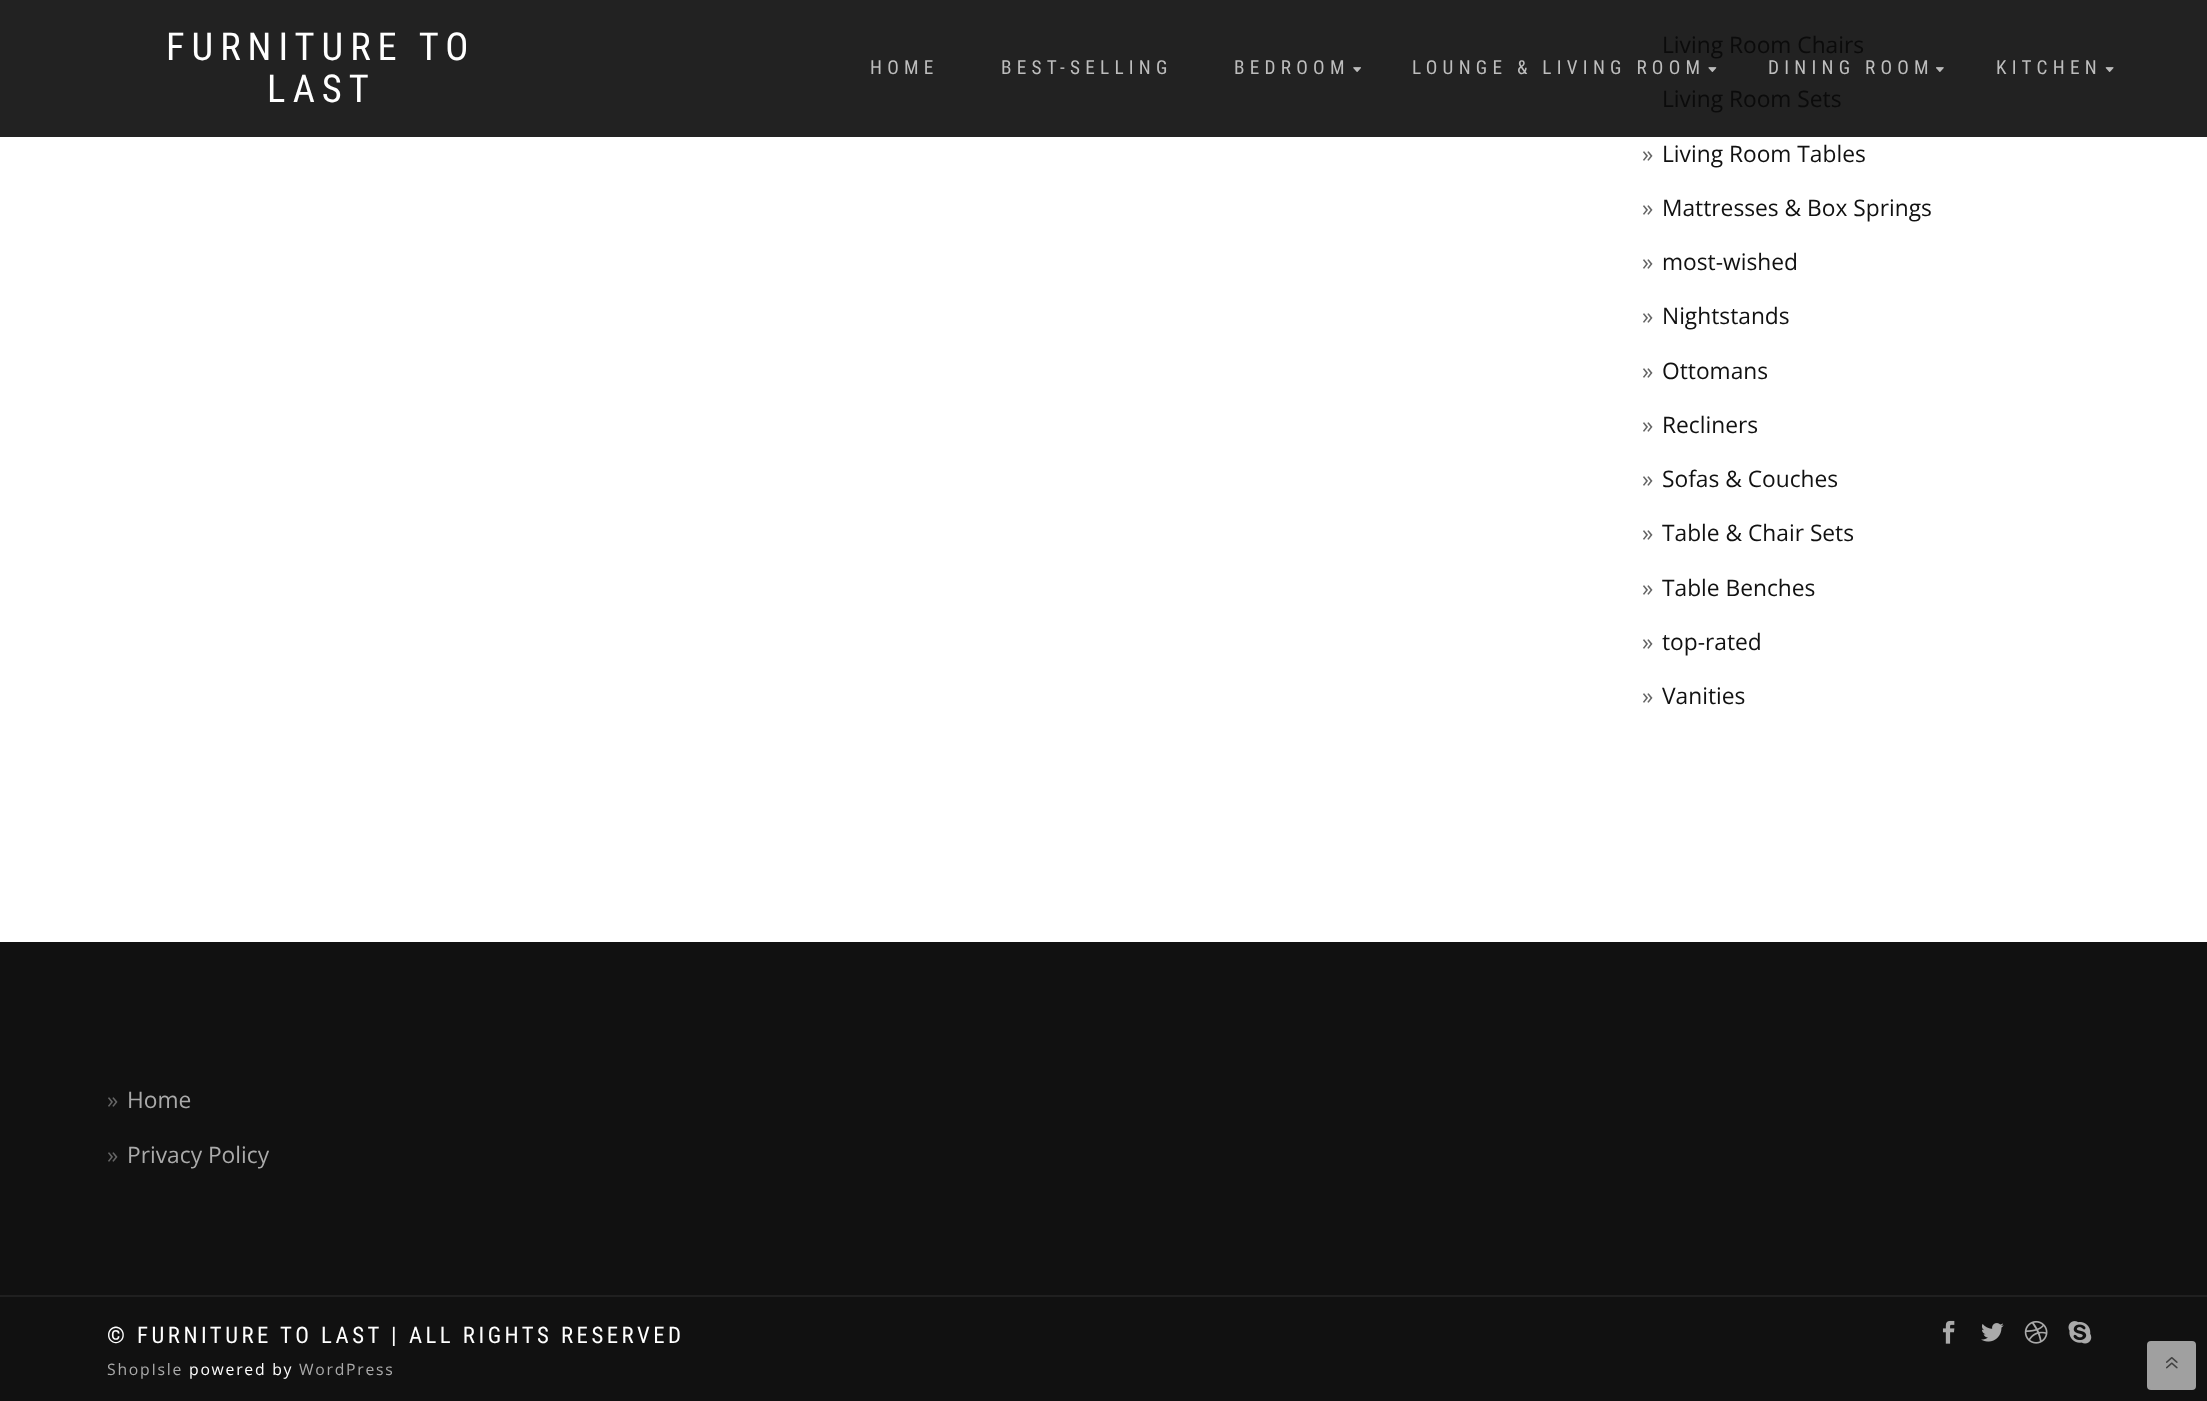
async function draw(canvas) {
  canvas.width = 2207
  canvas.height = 1401
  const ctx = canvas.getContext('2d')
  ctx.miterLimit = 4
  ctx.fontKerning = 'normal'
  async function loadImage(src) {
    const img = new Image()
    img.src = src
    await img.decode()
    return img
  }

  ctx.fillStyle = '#fff'
  ctx.fillRect(0, 0, 2207, 1401)
  ctx.fillStyle = '#222'
  ctx.fillRect(0, 0, 2207, 137)
  ctx.letterSpacing = '7px'
  ctx.font = '38.5px Roboto Condensed'
  ctx.fillStyle = '#fff'
  ctx.fillText('FURNITURE TO', 166, 60)
  ctx.fillText('LAST', 267, 102)
  ctx.letterSpacing = '5.25px'
  ctx.font = '19.25px Roboto Condensed'
  ctx.fillStyle = '#bdbdbd'
  ctx.fillText('HOME', 870, 74)
  ctx.fillText('BEST-SELLING', 1001, 74)
  ctx.fillText('BEDROOM', 1234, 74)
  ctx.drawImage(await loadImage('image0.png'), 1353, 67, 8, 5)
  ctx.fillText('LOUNGE & LIVING ROOM', 1412, 74)
  ctx.drawImage(await loadImage('image1.png'), 1708, 67, 9, 5)
  ctx.fillText('DINING ROOM', 1768, 74)
  ctx.drawImage(await loadImage('image2.png'), 1936, 67, 8, 5)
  ctx.fillText('KITCHEN', 1996, 74)
  ctx.drawImage(await loadImage('image3.png'), 2105, 67, 9, 5)
  ctx.letterSpacing = '0px'
  ctx.font = '22.75px Open Sans'
  ctx.fillStyle = '#0b0b0b'
  ctx.fillText('Living Room Chairs', 1662, 53)
  ctx.fillText('Living Room Sets', 1662, 107)
  ctx.fillStyle = '#666'
  ctx.fillText('»', 1642, 162)
  ctx.fillStyle = '#111'
  ctx.fillText('Living Room Tables', 1662, 162)
  ctx.fillStyle = '#666'
  ctx.fillText('»', 1642, 216)
  ctx.fillStyle = '#111'
  ctx.fillText('Mattresses & Box Springs', 1662, 216)
  ctx.fillStyle = '#666'
  ctx.fillText('»', 1642, 270)
  ctx.fillStyle = '#111'
  ctx.fillText('most-wished', 1662, 270)
  ctx.fillStyle = '#666'
  ctx.fillText('»', 1642, 324)
  ctx.fillStyle = '#111'
  ctx.fillText('Nightstands', 1662, 324)
  ctx.fillStyle = '#666'
  ctx.fillText('»', 1642, 379)
  ctx.fillStyle = '#111'
  ctx.fillText('Ottomans', 1662, 379)
  ctx.fillStyle = '#666'
  ctx.fillText('»', 1642, 433)
  ctx.fillStyle = '#111'
  ctx.fillText('Recliners', 1662, 433)
  ctx.fillStyle = '#666'
  ctx.fillText('»', 1642, 487)
  ctx.fillStyle = '#111'
  ctx.fillText('Sofas & Couches', 1662, 487)
  ctx.fillStyle = '#666'
  ctx.fillText('»', 1642, 541)
  ctx.fillStyle = '#111'
  ctx.fillText('Table & Chair Sets', 1662, 541)
  ctx.fillStyle = '#666'
  ctx.fillText('»', 1642, 596)
  ctx.fillStyle = '#111'
  ctx.fillText('Table Benches', 1662, 596)
  ctx.fillStyle = '#666'
  ctx.fillText('»', 1642, 650)
  ctx.fillStyle = '#111'
  ctx.fillText('top-rated', 1662, 650)
  ctx.fillStyle = '#666'
  ctx.fillText('»', 1642, 704)
  ctx.fillStyle = '#111'
  ctx.fillText('Vanities', 1662, 704)
  ctx.fillRect(0, 942, 2207, 353)
  ctx.fillStyle = '#666'
  ctx.fillText('»', 107, 1108)
  ctx.fillStyle = '#aaa'
  ctx.fillText('Home', 127, 1108)
  ctx.fillStyle = '#666'
  ctx.fillText('»', 107, 1163)
  ctx.fillStyle = '#aaa'
  ctx.fillText('Privacy Policy', 127, 1163)
  ctx.fillStyle = '#111'
  ctx.fillRect(0, 1297, 2207, 104)
  ctx.fillStyle = '#202020'
  ctx.fillRect(0, 1295, 2207, 2)
  ctx.letterSpacing = '3.5px'
  ctx.font = '22.75px Roboto Condensed'
  ctx.fillStyle = '#fff'
  ctx.fillText('© FURNITURE TO LAST | ALL RIGHTS RESERVED', 107, 1343)
  ctx.letterSpacing = '1.75px'
  ctx.font = '15.75px Open Sans'
  ctx.fillStyle = '#aaa'
  ctx.fillText('ShopIsle', 107, 1375)
  ctx.fillStyle = '#fff'
  ctx.fillText('powered by', 189, 1375)
  ctx.fillStyle = '#aaa'
  ctx.fillText('WordPress', 299, 1375)
  ctx.drawImage(await loadImage('image4.png'), 1942, 1320, 13, 24)
  ctx.drawImage(await loadImage('image5.png'), 1981, 1323, 23, 19)
  ctx.drawImage(await loadImage('image6.png'), 2024, 1320, 24, 24)
  ctx.drawImage(await loadImage('image7.png'), 2068, 1321, 24, 23)
  ctx.fillStyle = '#a0a0a0'
  ctx.beginPath()
  ctx.roundRect(2147, 1341, 49, 49, 4)
  ctx.fill()
  ctx.drawImage(await loadImage('image8.png'), 2166, 1357, 12, 12)
}

draw(document.querySelector('canvas'))
